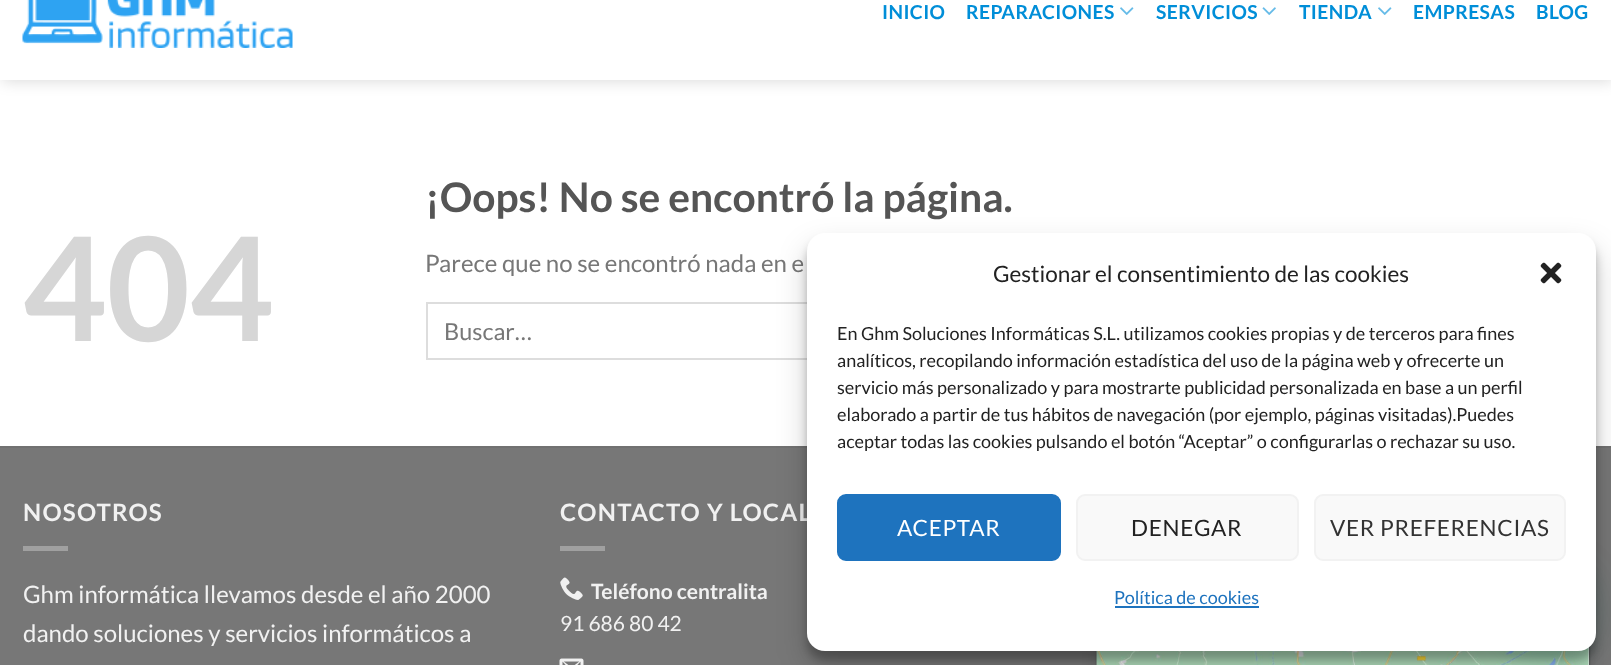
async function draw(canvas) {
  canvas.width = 1611
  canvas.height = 665
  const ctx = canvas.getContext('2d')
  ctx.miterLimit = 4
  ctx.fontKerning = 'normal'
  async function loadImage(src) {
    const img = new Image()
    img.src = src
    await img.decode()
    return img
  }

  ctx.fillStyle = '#fff'
  ctx.fillRect(0, 0, 1611, 665)
  ctx.save()
  ctx.beginPath()
  ctx.moveTo(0, 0)
  ctx.lineTo(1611, 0)
  ctx.lineTo(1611, 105)
  ctx.lineTo(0, 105)
  ctx.closePath()
  ctx.moveTo(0, -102)
  ctx.lineTo(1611, -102)
  ctx.lineTo(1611, 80)
  ctx.lineTo(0, 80)
  ctx.closePath()
  ctx.clip('evenodd')
  ctx.fillStyle = '#00000026'
  ctx.filter = 'blur(7.5px)'
  ctx.beginPath()
  ctx.rect(2, -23, 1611, 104)
  ctx.fill()
  ctx.filter = 'none'
  ctx.restore()
  ctx.drawImage(await loadImage('image0.png'), 22, 0, 271, 48)
  ctx.letterSpacing = '0.4px'
  ctx.font = 'bold 19.25px Lato'
  ctx.fillStyle = '#008ed8'
  ctx.fillText('INICIO', 882, 19)
  ctx.fillText('REPARACIONES', 966, 19)
  ctx.drawImage(await loadImage('image1.png'), 1120, 7, 14, 8)
  ctx.fillText('SERVICIOS', 1156, 19)
  ctx.drawImage(await loadImage('image2.png'), 1262, 7, 14, 8)
  ctx.fillText('TIENDA', 1299, 19)
  ctx.drawImage(await loadImage('image1.png'), 1378, 7, 14, 8)
  ctx.fillText('EMPRESAS', 1413, 19)
  ctx.fillText('BLOG', 1536, 19)
  ctx.fillStyle = '#ffffffe6'
  ctx.fillRect(0, 79, 1611, 1)
  ctx.letterSpacing = '0px'
  ctx.font = 'bold 144px Lato'
  ctx.fillStyle = '#d6d6d6'
  ctx.fillText('404', 23, 341)
  ctx.font = 'bold 40.75px Lato'
  ctx.fillStyle = '#555'
  ctx.fillText('¡Oops! No se encontró la página.', 425, 212)
  ctx.font = '24px Lato'
  ctx.fillStyle = '#777'
  ctx.fillText('Parece que no se encontró nada en e', 425, 272)
  ctx.strokeStyle = '#ddd'
  ctx.lineWidth = 2
  ctx.strokeRect(427, 303, 1101, 56)
  ctx.font = '23.5px Lato'
  ctx.fillText('Buscar…', 444, 340)
  ctx.fillRect(0, 448, 1611, 217)
  ctx.fillStyle = '#717171'
  ctx.fillRect(0, 446, 1611, 2)
  ctx.letterSpacing = '1.25px'
  ctx.font = 'bold 24px Lato'
  ctx.fillStyle = '#f1f1f1'
  ctx.fillText('NOSOTROS', 23, 521)
  ctx.fillStyle = '#a0a0a0'
  ctx.fillRect(23, 546, 45, 5)
  ctx.letterSpacing = '0px'
  ctx.font = '24px Lato'
  ctx.fillStyle = '#f1f1f1'
  ctx.fillText('Ghm informática llevamos desde el año 2000', 23, 603)
  ctx.fillText('dando soluciones y servicios informáticos a', 23, 642)
  ctx.letterSpacing = '1.25px'
  ctx.font = 'bold 24px Lato'
  ctx.fillText('CONTACTO Y LOCAL', 560, 521)
  ctx.fillStyle = '#a0a0a0'
  ctx.fillRect(560, 546, 45, 5)
  ctx.drawImage(await loadImage('image3.png'), 560, 577, 23, 23)
  ctx.letterSpacing = '0px'
  ctx.font = 'bold 21px Lato'
  ctx.fillStyle = '#f1f1f1'
  ctx.fillText('Teléfono centralita', 591, 599)
  ctx.font = '21px Lato'
  ctx.fillText('91 686 80 42', 560, 631)
  ctx.drawImage(await loadImage('image4.png'), 559, 658, 25, 7)
  ctx.fillStyle = '#00000026'
  ctx.filter = 'blur(7.5px)'
  ctx.beginPath()
  ctx.roundRect(1097, 576, 492, 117, 5)
  ctx.fill()
  ctx.filter = 'none'
  ctx.fillStyle = '#00000080'
  ctx.filter = 'blur(1px)'
  ctx.beginPath()
  ctx.roundRect(1097, 575, 492, 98, 5)
  ctx.fill()
  ctx.filter = 'none'
  ctx.fillStyle = '#fff'
  ctx.fillRect(1588, 647, 1, 18)
  ctx.drawImage(await loadImage('image5.png'), 1096, 647, 493, 18)
  ctx.fillStyle = '#0000003b'
  ctx.filter = 'blur(4.5px)'
  ctx.beginPath()
  ctx.roundRect(807, 242, 789, 418, 18)
  ctx.fill()
  ctx.filter = 'none'
  ctx.fillStyle = '#00000030'
  ctx.filter = 'blur(15px)'
  ctx.beginPath()
  ctx.roundRect(807, 248, 789, 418, 18)
  ctx.fill()
  ctx.filter = 'none'
  ctx.fillStyle = '#075e543d'
  ctx.filter = 'blur(18px)'
  ctx.beginPath()
  ctx.roundRect(1502, 564, 90, 90, 45)
  ctx.fill()
  ctx.filter = 'none'
  ctx.fillStyle = '#fff'
  ctx.beginPath()
  ctx.roundRect(807, 233, 789, 418, 18)
  ctx.fill()
  ctx.font = '22.5px Lato'
  ctx.fillStyle = '#222'
  ctx.fillText('Gestionar el consentimiento de las cookies', 993, 282)
  ctx.drawImage(await loadImage('image6.png'), 1540, 262, 22, 22)
  ctx.font = '18px Lato'
  ctx.fillText('En Ghm Soluciones Informáticas S.L. utilizamos cookies propias y de terceros para fines', 837, 340)
  ctx.fillText('analíticos, recopilando información estadística del uso de la página web y ofrecerte un', 837, 367)
  ctx.fillText('servicio más personalizado y para mostrarte publicidad personalizada en base a un perfil', 837, 394)
  ctx.fillText('elaborado a partir de tus hábitos de navegación (por ejemplo, páginas visitadas).Puedes', 837, 421)
  ctx.fillText('aceptar todas las cookies pulsando el botón “Aceptar” o configurarlas o rechazar su uso.', 837, 448)
  ctx.fillStyle = '#1e73be'
  ctx.beginPath()
  ctx.roundRect(838, 495, 222, 65, 8)
  ctx.fill()
  ctx.strokeStyle = '#1e73be'
  ctx.stroke()
  ctx.letterSpacing = '0.7px'
  ctx.font = '22.5px Lato'
  ctx.fillStyle = '#fff'
  ctx.fillText('ACEPTAR', 897, 536)
  ctx.fillStyle = '#f9f9f9'
  ctx.beginPath()
  ctx.roundRect(1077, 495, 221, 65, 8)
  ctx.fill()
  ctx.strokeStyle = '#f2f2f2'
  ctx.stroke()
  ctx.fillStyle = '#222'
  ctx.fillText('DENEGAR', 1131, 536)
  ctx.fillStyle = '#f9f9f9'
  ctx.beginPath()
  ctx.roundRect(1315, 495, 250, 65, 8)
  ctx.fill()
  ctx.stroke()
  ctx.fillStyle = '#333'
  ctx.fillText('VER PREFERENCIAS', 1330, 536)
  ctx.letterSpacing = '0px'
  ctx.font = '18px Lato'
  ctx.fillStyle = '#1e73be'
  ctx.fillText('Política de cookies', 1114, 604)
  ctx.fillRect(1115, 606, 144, 2)
}

draw(document.querySelector('canvas'))
